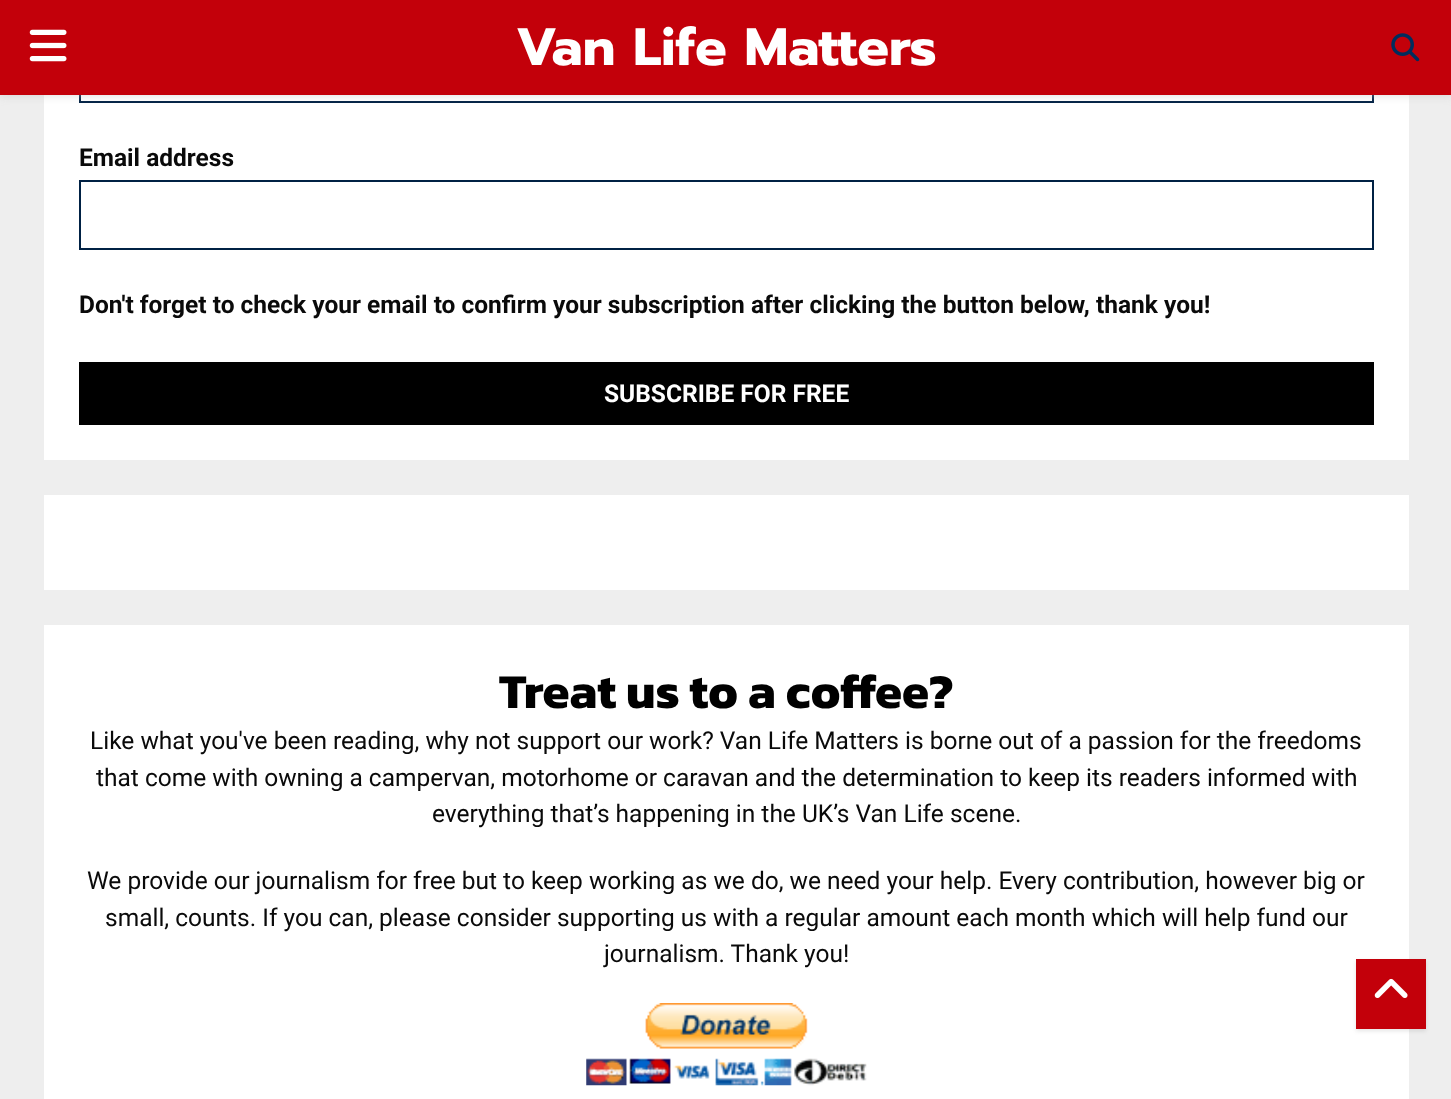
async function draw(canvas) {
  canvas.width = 1451
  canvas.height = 1099
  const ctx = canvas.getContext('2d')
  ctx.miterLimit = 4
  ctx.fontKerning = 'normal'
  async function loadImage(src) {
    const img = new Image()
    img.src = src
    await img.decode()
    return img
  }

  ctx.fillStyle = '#eee'
  ctx.fillRect(0, 0, 1451, 1099)
  ctx.fillStyle = '#fff'
  ctx.fillRect(44, 95, 1365, 365)
  ctx.strokeStyle = '#002144'
  ctx.lineWidth = 2
  ctx.strokeRect(80, 34, 1293, 68)
  ctx.fillStyle = '#bebebe75'
  ctx.filter = 'blur(4.5px)'
  ctx.beginPath()
  ctx.rect(0, 2, 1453, 94)
  ctx.fill()
  ctx.filter = 'none'
  ctx.fillStyle = '#c3000a'
  ctx.fillRect(0, 0, 1451, 95)
  ctx.drawImage(await loadImage('image0.png'), 29, 29, 38, 33)
  ctx.font = 'bold 52.5px Prompt'
  ctx.fillStyle = '#fff'
  ctx.fillText('Van Life Matters', 516, 65)
  ctx.drawImage(await loadImage('image1.png'), 1391, 33, 29, 29)
  ctx.font = 'bold 24.5px Roboto'
  ctx.fillStyle = '#0a0a0a'
  ctx.fillText('Email address', 79, 166)
  ctx.strokeRect(80, 181, 1293, 68)
  ctx.fillText('Don\'t forget to check your email to confirm your subscription after clicking the button below, thank you!', 79, 313)
  ctx.fillStyle = '#000'
  ctx.fillRect(79, 362, 1295, 63)
  ctx.fillStyle = '#fff'
  ctx.fillText('SUBSCRIBE FOR FREE', 604, 402)
  ctx.fillRect(44, 495, 1365, 95)
  ctx.fillRect(44, 625, 1365, 474)
  ctx.font = 'bold 49px Kanit'
  ctx.fillStyle = '#000'
  ctx.fillText('Treat us to a coffee?', 499, 708)
  ctx.font = '24.5px Roboto'
  ctx.fillStyle = '#0a0a0a'
  ctx.fillText('Like what you\'ve been reading, why not support our work? Van Life Matters is borne out of a passion for the freedoms', 90, 749)
  ctx.fillText('that come with owning a campervan, motorhome or caravan and the determination to keep its readers informed with', 96, 786)
  ctx.fillText('everything that’s happening in the UK’s Van Life scene.', 432, 822)
  ctx.fillText('We provide our journalism for free but to keep working as we do, we need your help. Every contribution, however big or', 87, 889)
  ctx.fillText('small, counts. If you can, please consider supporting us with a regular amount each month which will help fund our', 105, 926)
  ctx.fillText('journalism. Thank you!', 604, 962)
  ctx.drawImage(await loadImage('image2.png'), 586, 1003, 281, 83)
  ctx.fillStyle = '#0000001a'
  ctx.filter = 'blur(2px)'
  ctx.beginPath()
  ctx.rect(1356, 961, 70, 70)
  ctx.fill()
  ctx.filter = 'none'
  ctx.fillStyle = '#c3000a'
  ctx.fillRect(1356, 959, 70, 70)
  ctx.drawImage(await loadImage('image3.png'), 1374, 978, 34, 20)
}

draw(document.querySelector('canvas'))
